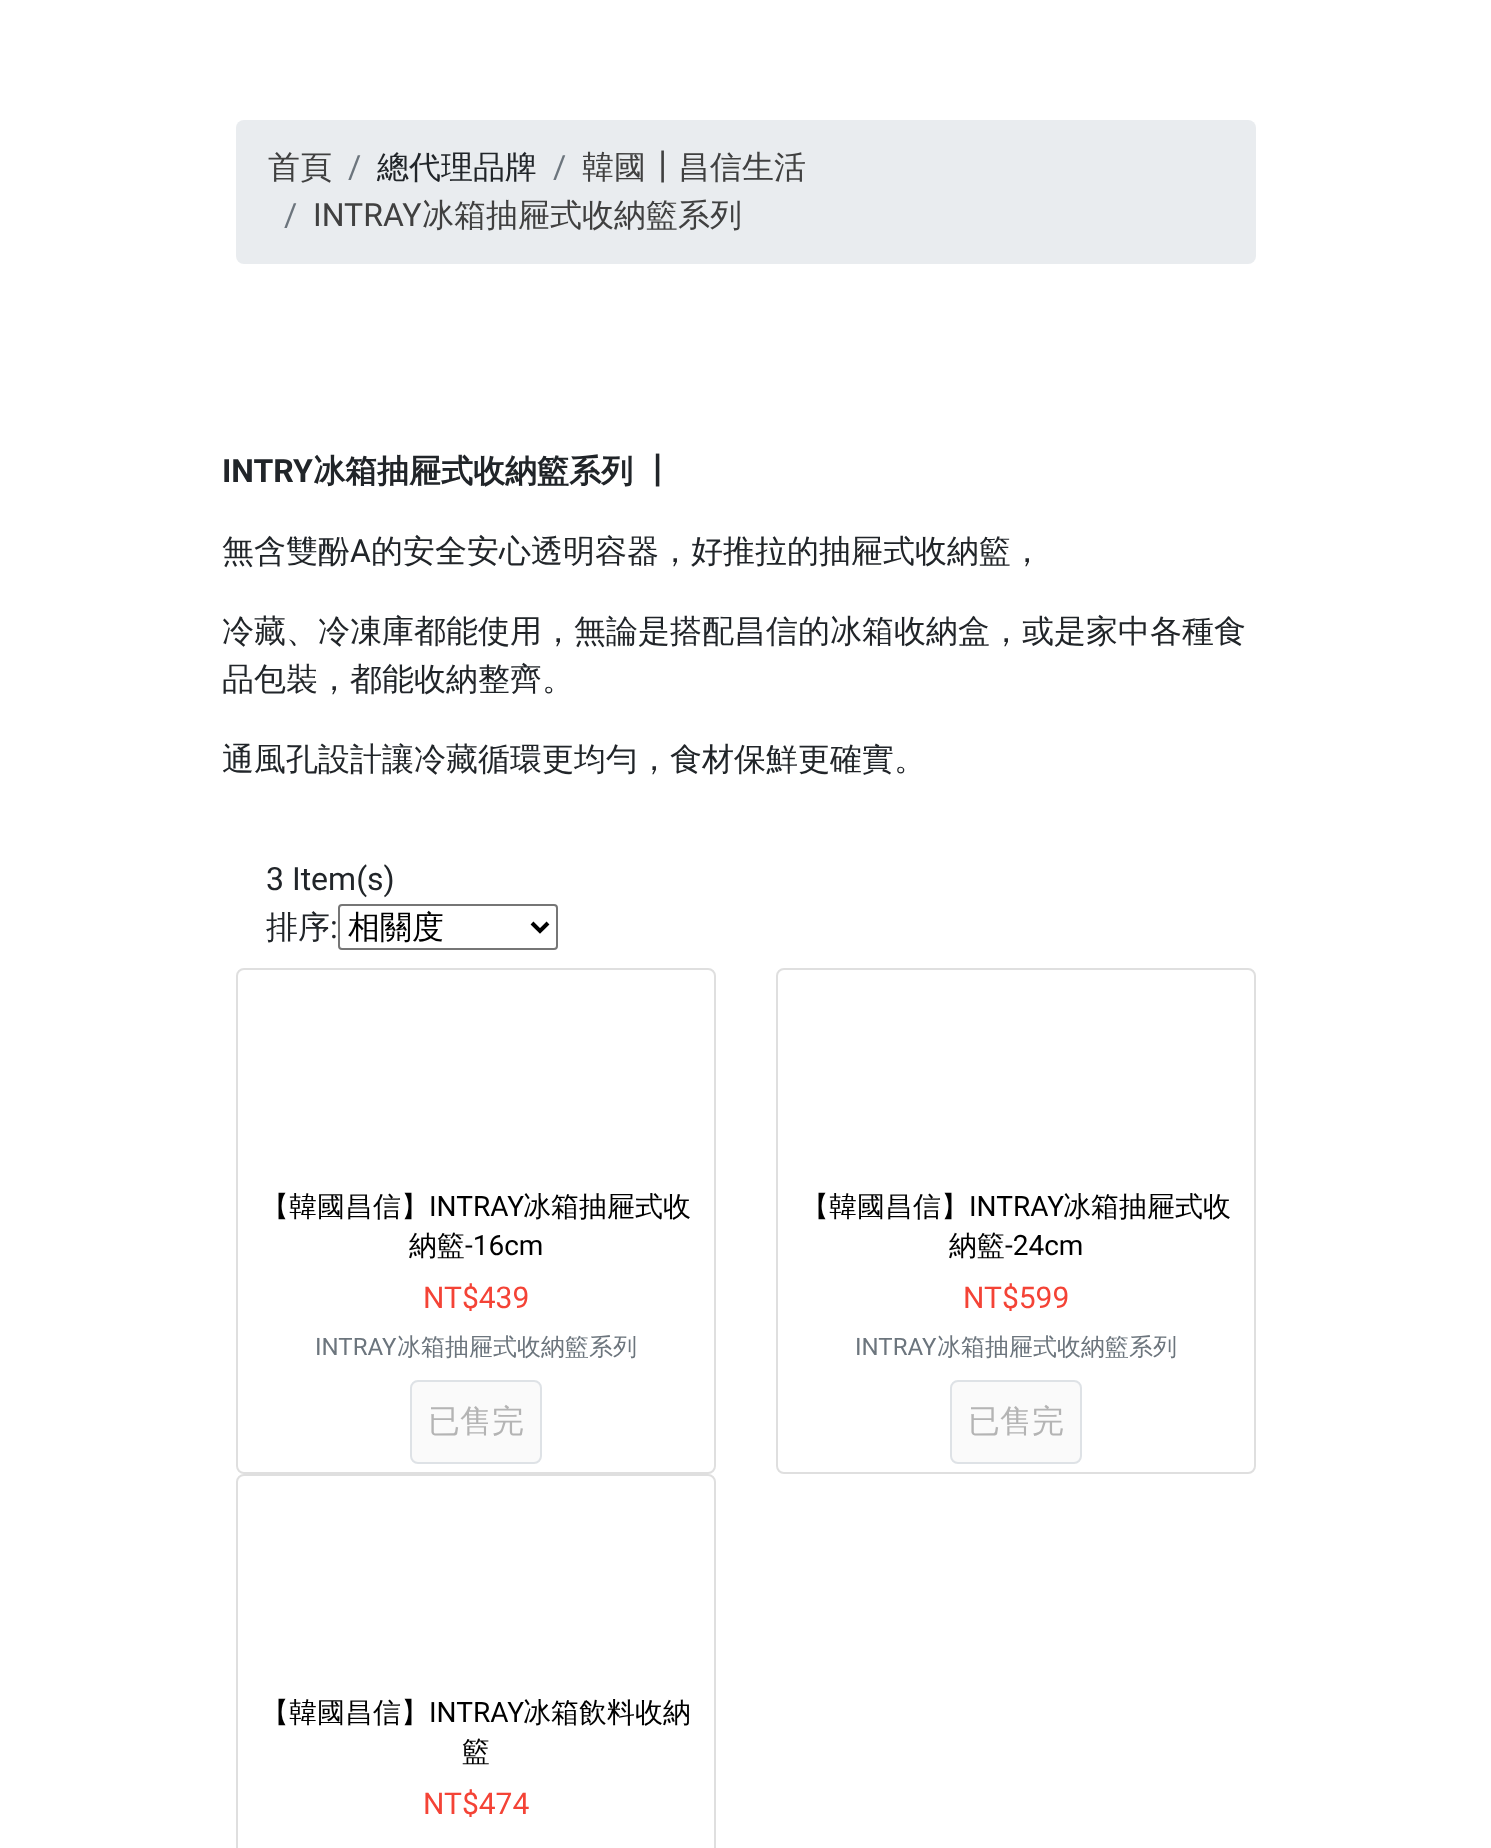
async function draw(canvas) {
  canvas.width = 1491
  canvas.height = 1848
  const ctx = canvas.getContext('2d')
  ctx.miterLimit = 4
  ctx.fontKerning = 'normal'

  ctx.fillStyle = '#fff'
  ctx.fillRect(0, 0, 1491, 1848)
  ctx.fillStyle = '#e9ecef'
  ctx.beginPath()
  ctx.roundRect(236, 120, 1020, 144, 8)
  ctx.fill()
  ctx.font = '500 32px WenQuanYi Zen Hei'
  ctx.fillStyle = '#404040'
  ctx.fillText('首頁', 268, 178)
  ctx.font = '32px Roboto'
  ctx.fillStyle = '#6c757d'
  ctx.fillText('/', 348, 178)
  ctx.font = '500 32px WenQuanYi Zen Hei'
  ctx.fillStyle = '#212529'
  ctx.fillText('總代理品牌', 377, 178)
  ctx.font = '32px Roboto'
  ctx.fillStyle = '#6c757d'
  ctx.fillText('/', 553, 178)
  ctx.font = '500 32px WenQuanYi Zen Hei'
  ctx.fillStyle = '#404040'
  ctx.fillText('韓國┃昌信生活', 582, 178)
  ctx.font = '32px Roboto'
  ctx.fillStyle = '#6c757d'
  ctx.fillText('/', 284, 226)
  ctx.fillStyle = '#404040'
  ctx.fillText('INTRAY', 313, 226)
  ctx.font = '500 32px WenQuanYi Zen Hei'
  ctx.fillText('冰箱抽屜式收納籃系列', 422, 226)
  ctx.font = 'bold 32px Roboto'
  ctx.fillStyle = '#212529'
  ctx.fillText('INTRY', 222, 482)
  ctx.wordSpacing = '-2px'
  ctx.font = 'bold 32px WenQuanYi Zen Hei'
  ctx.fillText('冰箱抽屜式收納籃系列 ┃', 313, 482)
  ctx.wordSpacing = '0px'
  ctx.font = '500 32px WenQuanYi Zen Hei'
  ctx.fillText('無含雙酚', 222, 562)
  ctx.font = '32px Roboto'
  ctx.fillText('A', 350, 562)
  ctx.font = '500 32px WenQuanYi Zen Hei'
  ctx.fillText('的安全安心透明容器，好推拉的抽屜式收納籃，', 371, 562)
  ctx.fillText('冷藏、冷凍庫都能使用，無論是搭配昌信的冰箱收納盒，或是家中各種食', 222, 642)
  ctx.fillText('品包裝，都能收納整齊。', 222, 690)
  ctx.fillText('通風孔設計讓冷藏循環更均勻，食材保鮮更確實。', 222, 770)
  ctx.font = '32px Roboto'
  ctx.fillText('3 Item(s)', 266, 890)
  ctx.font = '500 32px WenQuanYi Zen Hei'
  ctx.fillText('排序', 266, 938)
  ctx.font = '32px Roboto'
  ctx.fillText(':', 330, 938)
  ctx.beginPath()
  ctx.roundRect(339, 905, 218, 44, 3)
  ctx.strokeStyle = '#767676'
  ctx.lineWidth = 2
  ctx.stroke()
  ctx.beginPath()
  ctx.moveTo(532, 923)
  ctx.lineTo(540, 931)
  ctx.lineTo(548, 923)
  ctx.strokeStyle = '#000'
  ctx.lineWidth = 4
  ctx.stroke()
  ctx.font = '500 32px WenQuanYi Zen Hei'
  ctx.fillStyle = '#000'
  ctx.fillText('相關度', 348, 938)
  ctx.beginPath()
  ctx.roundRect(237, 969, 478, 504, 7)
  ctx.strokeStyle = '#dfdfdf'
  ctx.lineWidth = 2
  ctx.stroke()
  ctx.font = '500 28px WenQuanYi Zen Hei'
  ctx.fillText('【韓國昌信】', 261, 1216)
  ctx.font = '28px Roboto'
  ctx.fillText('INTRAY', 429, 1216)
  ctx.font = '500 28px WenQuanYi Zen Hei'
  ctx.fillText('冰箱抽屜式收', 523, 1216)
  ctx.fillText('納籃', 409, 1255)
  ctx.font = '28px Roboto'
  ctx.fillText('-16cm', 465, 1255)
  ctx.font = '30px Roboto'
  ctx.fillStyle = '#f44336'
  ctx.fillText('NT$439', 423, 1308)
  ctx.font = '24px Roboto'
  ctx.fillStyle = '#6c757d'
  ctx.fillText('INTRAY', 315, 1355)
  ctx.font = '500 24px WenQuanYi Zen Hei'
  ctx.fillText('冰箱抽屜式收納籃系列', 397, 1355)
  ctx.fillStyle = '#fafafa'
  ctx.beginPath()
  ctx.roundRect(411, 1381, 130, 82, 7)
  ctx.fill()
  ctx.strokeStyle = '#dee2e6'
  ctx.stroke()
  ctx.font = '500 32px WenQuanYi Zen Hei'
  ctx.fillStyle = '#b4b4b4'
  ctx.fillText('已售完', 428, 1432)
  ctx.beginPath()
  ctx.roundRect(777, 969, 478, 504, 7)
  ctx.strokeStyle = '#dfdfdf'
  ctx.stroke()
  ctx.font = '500 28px WenQuanYi Zen Hei'
  ctx.fillStyle = '#000'
  ctx.fillText('【韓國昌信】', 801, 1216)
  ctx.font = '28px Roboto'
  ctx.fillText('INTRAY', 969, 1216)
  ctx.font = '500 28px WenQuanYi Zen Hei'
  ctx.fillText('冰箱抽屜式收', 1063, 1216)
  ctx.fillText('納籃', 949, 1255)
  ctx.font = '28px Roboto'
  ctx.fillText('-24cm', 1005, 1255)
  ctx.font = '30px Roboto'
  ctx.fillStyle = '#f44336'
  ctx.fillText('NT$599', 963, 1308)
  ctx.font = '24px Roboto'
  ctx.fillStyle = '#6c757d'
  ctx.fillText('INTRAY', 855, 1355)
  ctx.font = '500 24px WenQuanYi Zen Hei'
  ctx.fillText('冰箱抽屜式收納籃系列', 937, 1355)
  ctx.fillStyle = '#fafafa'
  ctx.beginPath()
  ctx.roundRect(951, 1381, 130, 82, 7)
  ctx.fill()
  ctx.strokeStyle = '#dee2e6'
  ctx.stroke()
  ctx.font = '500 32px WenQuanYi Zen Hei'
  ctx.fillStyle = '#b4b4b4'
  ctx.fillText('已售完', 968, 1432)
  ctx.beginPath()
  ctx.roundRect(237, 1475, 478, 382, 7)
  ctx.strokeStyle = '#dfdfdf'
  ctx.stroke()
  ctx.font = '500 28px WenQuanYi Zen Hei'
  ctx.fillStyle = '#000'
  ctx.fillText('【韓國昌信】', 261, 1722)
  ctx.font = '28px Roboto'
  ctx.fillText('INTRAY', 429, 1722)
  ctx.font = '500 28px WenQuanYi Zen Hei'
  ctx.fillText('冰箱飲料收納', 523, 1722)
  ctx.fillText('籃', 462, 1761)
  ctx.font = '30px Roboto'
  ctx.fillStyle = '#f44336'
  ctx.fillText('NT$474', 423, 1814)
}

draw(document.querySelector('canvas'))
